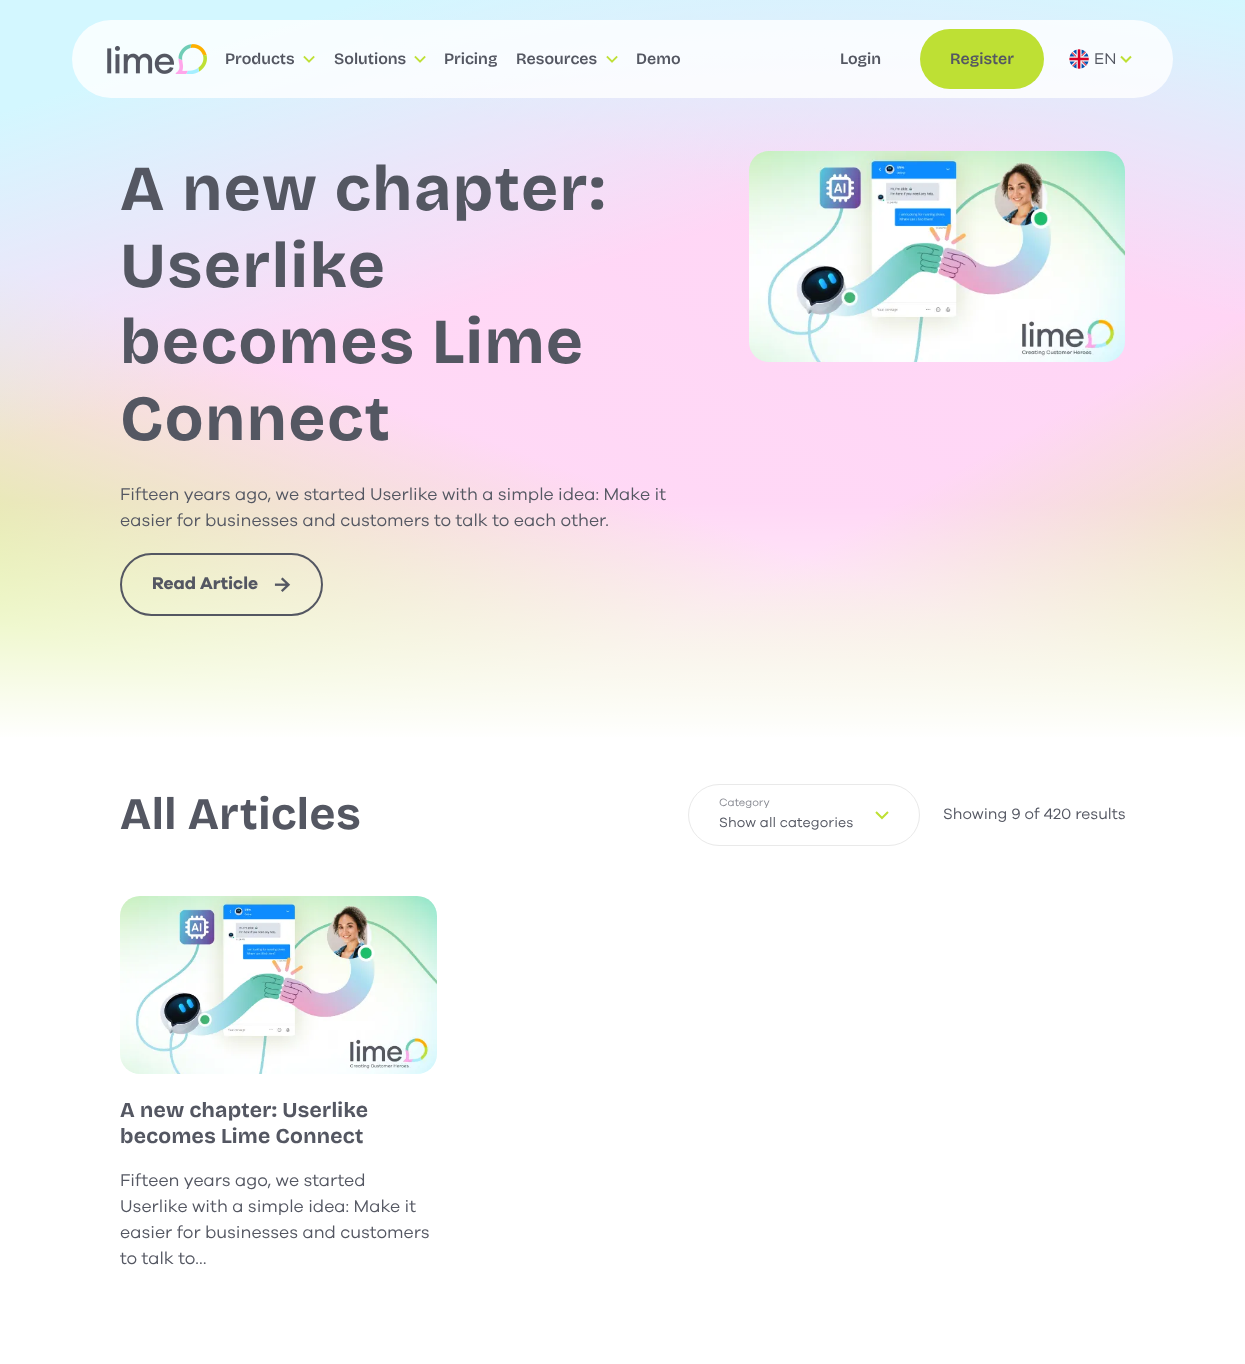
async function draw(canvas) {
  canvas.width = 1245
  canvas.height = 1364
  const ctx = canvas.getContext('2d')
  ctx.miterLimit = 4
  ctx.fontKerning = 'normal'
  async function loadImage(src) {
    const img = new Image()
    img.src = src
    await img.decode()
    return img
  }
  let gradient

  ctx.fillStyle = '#fff'
  ctx.fillRect(0, 0, 1245, 1364)
  gradient = ctx.createLinearGradient(938, -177, 307, 917)
  gradient.addColorStop(0, '#ffa6ea')
  gradient.addColorStop(1, '#ffb8ee')
  ctx.fillStyle = gradient
  ctx.fillRect(0, 0, 1245, 737)
  gradient = ctx.createLinearGradient(431, 897, 814, -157)
  gradient.addColorStop(0.1, '#bee034')
  gradient.addColorStop(0.4, '#bee03400')
  ctx.fillStyle = gradient
  ctx.fillRect(0, 271, 1245, 466)
  gradient = ctx.createLinearGradient(466, -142, 779, 882)
  gradient.addColorStop(0.1, '#a6efff')
  gradient.addColorStop(0.4, '#a6efff00')
  ctx.fillStyle = gradient
  ctx.fillRect(0, 0, 1245, 440)
  gradient = ctx.createLinearGradient(757, -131, 488, 871)
  gradient.addColorStop(0, '#a6efff')
  gradient.addColorStop(0.3, '#a6efff00')
  ctx.fillStyle = gradient
  ctx.fillRect(383, 0, 862, 314)
  gradient = ctx.createLinearGradient(926, 917, 319, -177)
  gradient.addColorStop(0, '#bee034')
  gradient.addColorStop(0.3, '#bee03400')
  ctx.fillStyle = gradient
  ctx.fillRect(525, 320, 720, 417)
  gradient = ctx.createLinearGradient(623, 740, 623, 0)
  gradient.addColorStop(0, '#fff')
  gradient.addColorStop(0.32, '#ffffff82')
  ctx.fillStyle = gradient
  ctx.fillRect(0, 0, 1245, 737)
  ctx.fillStyle = '#ffffffcc'
  ctx.beginPath()
  ctx.roundRect(72, 20, 1101, 78, 39)
  ctx.fill()
  ctx.drawImage(await loadImage('image0.png'), 107, 44, 100, 30)
  ctx.font = '600 16px Bricolage Grotesque'
  ctx.fillStyle = '#545762'
  ctx.fillText('Products', 225, 64)
  ctx.drawImage(await loadImage('image1.png'), 303, 55, 12, 8)
  ctx.fillText('Solutions', 334, 64)
  ctx.drawImage(await loadImage('image2.png'), 414, 55, 12, 8)
  ctx.fillText('Pricing', 444, 64)
  ctx.fillText('Resources', 516, 64)
  ctx.drawImage(await loadImage('image3.png'), 606, 55, 12, 8)
  ctx.fillText('Demo', 636, 64)
  ctx.fillText('Login', 840, 64)
  ctx.fillStyle = '#bee034'
  ctx.beginPath()
  ctx.roundRect(920, 29, 124, 60, 30)
  ctx.fill()
  ctx.fillStyle = '#545762'
  ctx.fillText('Register', 950, 64)
  ctx.drawImage(await loadImage('image4.png'), 1069, 49, 20, 20)
  ctx.font = '16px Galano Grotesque'
  ctx.fillText('EN', 1094, 64)
  ctx.beginPath()
  ctx.moveTo(1131, 56.5)
  ctx.lineTo(1126, 61.5)
  ctx.lineTo(1121, 56.5)
  ctx.strokeStyle = '#bee034'
  ctx.lineWidth = 2
  ctx.stroke()
  ctx.letterSpacing = '1.6px'
  ctx.font = 'bold 64px Bricolage Grotesque'
  ctx.fillText('A new chapter:', 120, 210)
  ctx.fillText('Userlike', 120, 287)
  ctx.fillText('becomes Lime', 120, 363)
  ctx.fillText('Connect', 120, 440)
  ctx.letterSpacing = '0px'
  ctx.font = '17.45px Galano Grotesque'
  ctx.fillText('Fifteen years ago, we started Userlike with a simple idea: Make it', 120, 500)
  ctx.fillText('easier for businesses and customers to talk to each other.', 120, 526)
  ctx.beginPath()
  ctx.roundRect(121, 554, 201, 61, 30.5)
  ctx.strokeStyle = '#545762'
  ctx.stroke()
  ctx.font = 'bold 17.45px Galano Grotesque'
  ctx.fillText('Read Article', 152, 589)
  ctx.drawImage(await loadImage('image5.png'), 274, 577, 17, 15)
  ctx.drawImage(await loadImage('image6.png'), 749, 151, 376, 211)
  ctx.letterSpacing = '0.5px'
  ctx.font = 'bold 45px Bricolage Grotesque'
  ctx.fillText('All Articles', 120, 829)
  ctx.beginPath()
  ctx.roundRect(688.5, 784.5, 231, 61, 30.5)
  ctx.strokeStyle = '#e9e9e9'
  ctx.lineWidth = 1
  ctx.stroke()
  ctx.letterSpacing = '0px'
  ctx.font = '11px Galano Grotesque'
  ctx.fillStyle = '#878991'
  ctx.fillText('Category', 719, 806)
  ctx.letterSpacing = '0.1px'
  ctx.font = '14px Galano Grotesque'
  ctx.fillStyle = '#545762'
  ctx.fillText('Show all categories', 719, 827)
  ctx.beginPath()
  ctx.moveTo(888, 812)
  ctx.lineTo(882, 818)
  ctx.lineTo(876, 812)
  ctx.strokeStyle = '#bee034'
  ctx.lineWidth = 2
  ctx.stroke()
  ctx.letterSpacing = '0px'
  ctx.font = '15.5px Galano Grotesque'
  ctx.fillText('Showing 9 of 420 results', 943, 819)
  ctx.drawImage(await loadImage('image7.png'), 120, 896, 317, 178)
  ctx.letterSpacing = '0.25px'
  ctx.font = 'bold 21.2px Bricolage Grotesque'
  ctx.fillText('A new chapter: Userlike', 120, 1117)
  ctx.fillText('becomes Lime Connect', 120, 1143)
  ctx.letterSpacing = '0px'
  ctx.font = '17.45px Galano Grotesque'
  ctx.fillText('Fifteen years ago, we started', 120, 1186)
  ctx.fillText('Userlike with a simple idea: Make it', 120, 1212)
  ctx.fillText('easier for businesses and customers', 120, 1238)
  ctx.fillText('to talk to…', 120, 1264)
}

draw(document.querySelector('canvas'))
